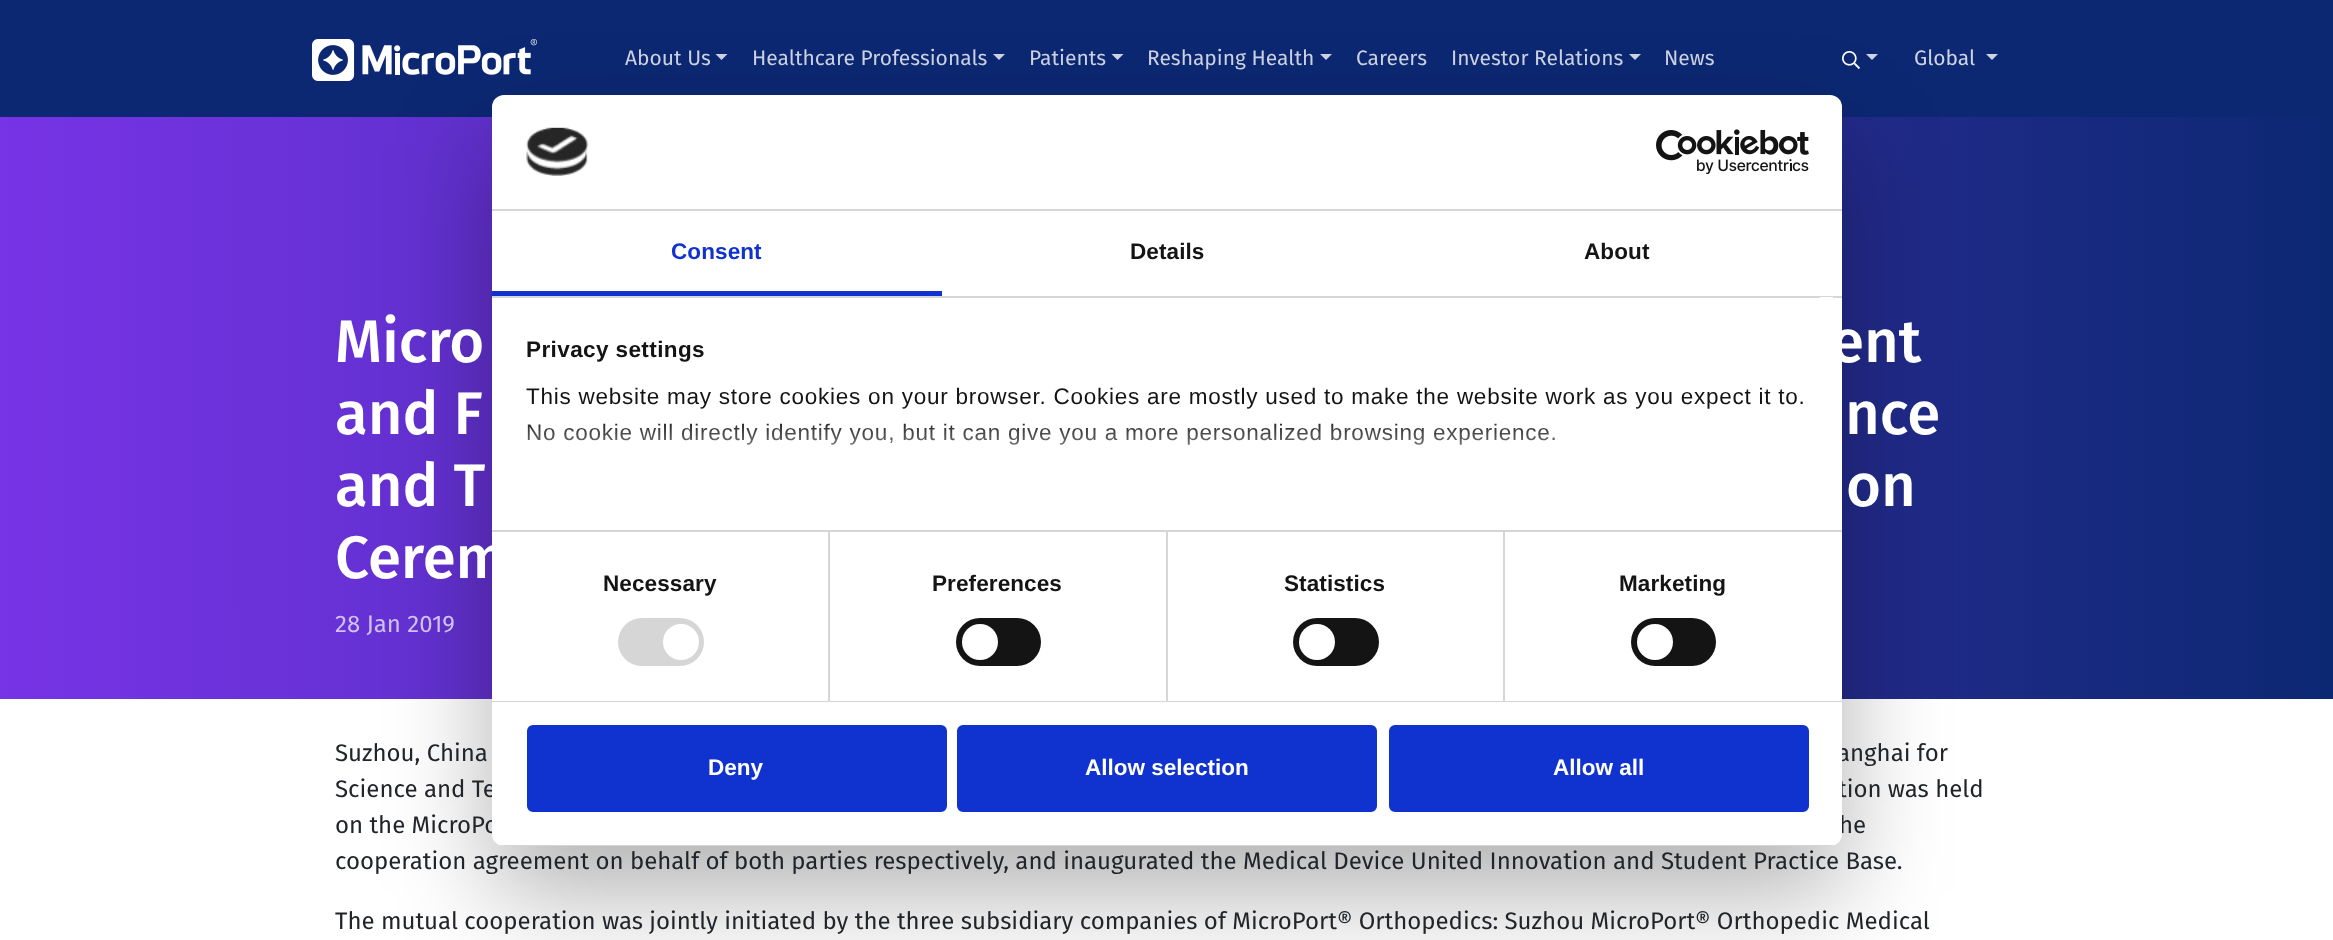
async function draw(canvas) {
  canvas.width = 2333
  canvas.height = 940
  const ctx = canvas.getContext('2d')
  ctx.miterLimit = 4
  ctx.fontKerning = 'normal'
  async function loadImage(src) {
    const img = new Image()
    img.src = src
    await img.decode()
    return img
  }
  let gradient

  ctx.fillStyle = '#fff'
  ctx.fillRect(0, 0, 2333, 940)
  ctx.fillStyle = '#0c2873'
  ctx.fillRect(0, 0, 2333, 117)
  ctx.drawImage(await loadImage('image0.png'), 312, 39, 225, 42)
  ctx.font = '21px Fira Sans'
  ctx.fillStyle = '#ced4e3'
  ctx.fillText('About Us', 625, 65)
  ctx.beginPath()
  ctx.moveTo(715.5, 54)
  ctx.lineTo(727.5, 54)
  ctx.lineTo(721.5, 60)
  ctx.closePath()
  ctx.fill()
  ctx.fillText('Healthcare Professionals', 752, 65)
  ctx.beginPath()
  ctx.moveTo(993, 54)
  ctx.lineTo(1005, 54)
  ctx.lineTo(999, 60)
  ctx.closePath()
  ctx.fill()
  ctx.fillText('Patients', 1029, 65)
  ctx.beginPath()
  ctx.moveTo(1111.5, 54)
  ctx.lineTo(1123.5, 54)
  ctx.lineTo(1117.5, 60)
  ctx.closePath()
  ctx.fill()
  ctx.fillText('Reshaping Health', 1147, 65)
  ctx.beginPath()
  ctx.moveTo(1320, 54)
  ctx.lineTo(1332, 54)
  ctx.lineTo(1326, 60)
  ctx.closePath()
  ctx.fill()
  ctx.fillText('Careers', 1356, 65)
  ctx.fillText('Investor Relations', 1451, 65)
  ctx.beginPath()
  ctx.moveTo(1629, 54)
  ctx.lineTo(1641, 54)
  ctx.lineTo(1635, 60)
  ctx.closePath()
  ctx.fill()
  ctx.fillText('News', 1664, 65)
  ctx.drawImage(await loadImage('image1.png'), 1842, 51, 18, 18)
  ctx.beginPath()
  ctx.moveTo(1866, 54)
  ctx.lineTo(1878, 54)
  ctx.lineTo(1872, 60)
  ctx.closePath()
  ctx.fill()
  ctx.fillText('Global', 1914, 65)
  ctx.beginPath()
  ctx.moveTo(1986, 54)
  ctx.lineTo(1998, 54)
  ctx.lineTo(1992, 60)
  ctx.closePath()
  ctx.fill()
  gradient = ctx.createLinearGradient(0, 407, 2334, 406)
  gradient.addColorStop(0, '#7733e6')
  gradient.addColorStop(1, '#0c2873')
  ctx.fillStyle = gradient
  ctx.fillRect(0, 117, 2333, 582)
  ctx.fillStyle = '#0000004d'
  ctx.filter = 'blur(51px)'
  ctx.beginPath()
  ctx.roundRect(492, 143, 1350, 751, 12)
  ctx.fill()
  ctx.filter = 'none'
  ctx.font = '24px Fira Sans'
  ctx.fillStyle = '#212529'
  ctx.fillText('anghai for', 1837, 761)
  ctx.fillText('Science and Te', 335, 797)
  ctx.fillText('tion was held', 1838, 797)
  ctx.fillText('on the MicroPo', 335, 833)
  ctx.fillText('he', 1839, 833)
  ctx.fillStyle = '#fff'
  ctx.beginPath()
  ctx.roundRect(492, 95, 1350, 751, 12)
  ctx.fill()
  ctx.fillStyle = '#d6d6d6'
  ctx.fillRect(492, 209, 1350, 2)
  ctx.drawImage(await loadImage('image2.png'), 526, 127, 63, 49)
  ctx.drawImage(await loadImage('image3.png'), 1656, 129, 153, 45)
  ctx.fillRect(492, 296, 1350, 2)
  ctx.fillStyle = '#1032cf'
  ctx.fillRect(492, 291, 450, 5)
  ctx.letterSpacing = '0.1px'
  ctx.font = 'bold 22.5px Liberation Sans'
  ctx.fillText('Consent', 671, 259)
  ctx.fillStyle = '#141414'
  ctx.fillText('Details', 1130, 259)
  ctx.fillText('About', 1584, 259)
  ctx.fillStyle = '#d6d6d6'
  ctx.fillRect(828, 531, 2, 170)
  ctx.fillRect(1166, 531, 2, 170)
  ctx.fillRect(1503, 531, 2, 170)
  ctx.fillRect(492, 530, 1350, 2)
  ctx.fillStyle = '#fff'
  ctx.fillRect(1820, 297, 13, 1)
  ctx.letterSpacing = '0.4px'
  ctx.fillStyle = '#141414'
  ctx.fillText('Privacy settings', 526, 357)
  ctx.letterSpacing = '0.75px'
  ctx.font = '22.5px Liberation Sans'
  ctx.fillText('This website may store cookies on your browser. Cookies are mostly used to make the website work as you expect it to.', 526, 404)
  ctx.fillText('No cookie will directly identify you, but it can give you a more personalized browsing experience.', 526, 440)
  gradient = ctx.createLinearGradient(1152, 530, 1152, 417)
  gradient.addColorStop(0, '#fff')
  gradient.addColorStop(0.5, '#ffffffcc')
  gradient.addColorStop(1, '#ffffff00')
  ctx.fillStyle = gradient
  ctx.fillRect(527, 423, 1028, 22)
  ctx.fillStyle = '#d6d6d6'
  ctx.fillRect(492, 701, 1350, 1)
  ctx.letterSpacing = '0.1px'
  ctx.font = 'bold 22.5px Liberation Sans'
  ctx.fillStyle = '#141414'
  ctx.fillText('Necessary', 603, 591)
  ctx.fillStyle = '#d6d6d6'
  ctx.beginPath()
  ctx.roundRect(618, 618, 86, 48, 24)
  ctx.fill()
  ctx.fillStyle = '#fff'
  ctx.beginPath()
  ctx.arc(681, 642, 18, 0, 2 * Math.PI)
  ctx.fill()
  ctx.fillStyle = '#141414'
  ctx.fillText('Preferences', 932, 591)
  ctx.beginPath()
  ctx.roundRect(956, 618, 85, 48, 24)
  ctx.fill()
  ctx.fillStyle = '#fff'
  ctx.beginPath()
  ctx.arc(980, 642, 18, 0, 2 * Math.PI)
  ctx.fill()
  ctx.fillStyle = '#141414'
  ctx.fillText('Statistics', 1284, 591)
  ctx.beginPath()
  ctx.roundRect(1293, 618, 86, 48, 24)
  ctx.fill()
  ctx.fillStyle = '#fff'
  ctx.beginPath()
  ctx.arc(1317, 642, 18, 0, 2 * Math.PI)
  ctx.fill()
  ctx.fillStyle = '#141414'
  ctx.fillText('Marketing', 1619, 591)
  ctx.beginPath()
  ctx.roundRect(1631, 618, 85, 48, 24)
  ctx.fill()
  ctx.fillStyle = '#fff'
  ctx.beginPath()
  ctx.arc(1655, 642, 18, 0, 2 * Math.PI)
  ctx.fill()
  ctx.save()
  ctx.beginPath()
  ctx.roundRect(492, 95, 1350, 751, 12)
  ctx.clip()
  ctx.fillStyle = '#d6d6d6'
  ctx.fillRect(492, 845, 1350, 1)
  ctx.restore()
  ctx.fillStyle = '#1032cf'
  ctx.beginPath()
  ctx.roundRect(528.5, 726.5, 417, 84, 4.5)
  ctx.fill()
  ctx.strokeStyle = '#1032cf'
  ctx.lineWidth = 3
  ctx.stroke()
  ctx.letterSpacing = '0px'
  ctx.fillStyle = '#fff'
  ctx.fillText('Deny', 708, 775)
  ctx.fillStyle = '#1032cf'
  ctx.beginPath()
  ctx.roundRect(958.5, 726.5, 417, 84, 4.5)
  ctx.fill()
  ctx.stroke()
  ctx.fillStyle = '#fff'
  ctx.fillText('Allow selection', 1085, 775)
  ctx.fillStyle = '#1032cf'
  ctx.beginPath()
  ctx.roundRect(1390.5, 726.5, 417, 84, 4.5)
  ctx.fill()
  ctx.stroke()
  ctx.fillStyle = '#fff'
  ctx.fillText('Allow all', 1553, 775)
  ctx.font = '500 60px Fira Sans'
  ctx.fillText('Micro', 335, 362)
  ctx.fillText('ent', 1831, 362)
  ctx.fillText('and F', 335, 434)
  ctx.fillText('nce', 1845, 434)
  ctx.fillText('and T', 335, 506)
  ctx.fillText('on', 1846, 506)
  ctx.fillText('Cerem', 335, 578)
  ctx.font = '24px Fira Sans'
  ctx.fillStyle = '#d1c1f2'
  ctx.fillText('28 Jan 2019', 335, 632)
  ctx.fillStyle = '#212529'
  ctx.fillText('Suzhou, China', 335, 761)
  ctx.fillText('cooperation agreement on behalf of both parties respectively, and inaugurated the Medical Device United Innovation and Student Practice Base.', 335, 869)
  ctx.fillText('The mutual cooperation was jointly initiated by the three subsidiary companies of MicroPort® Orthopedics: Suzhou MicroPort® Orthopedic Medical', 335, 929)
}

draw(document.querySelector('canvas'))
